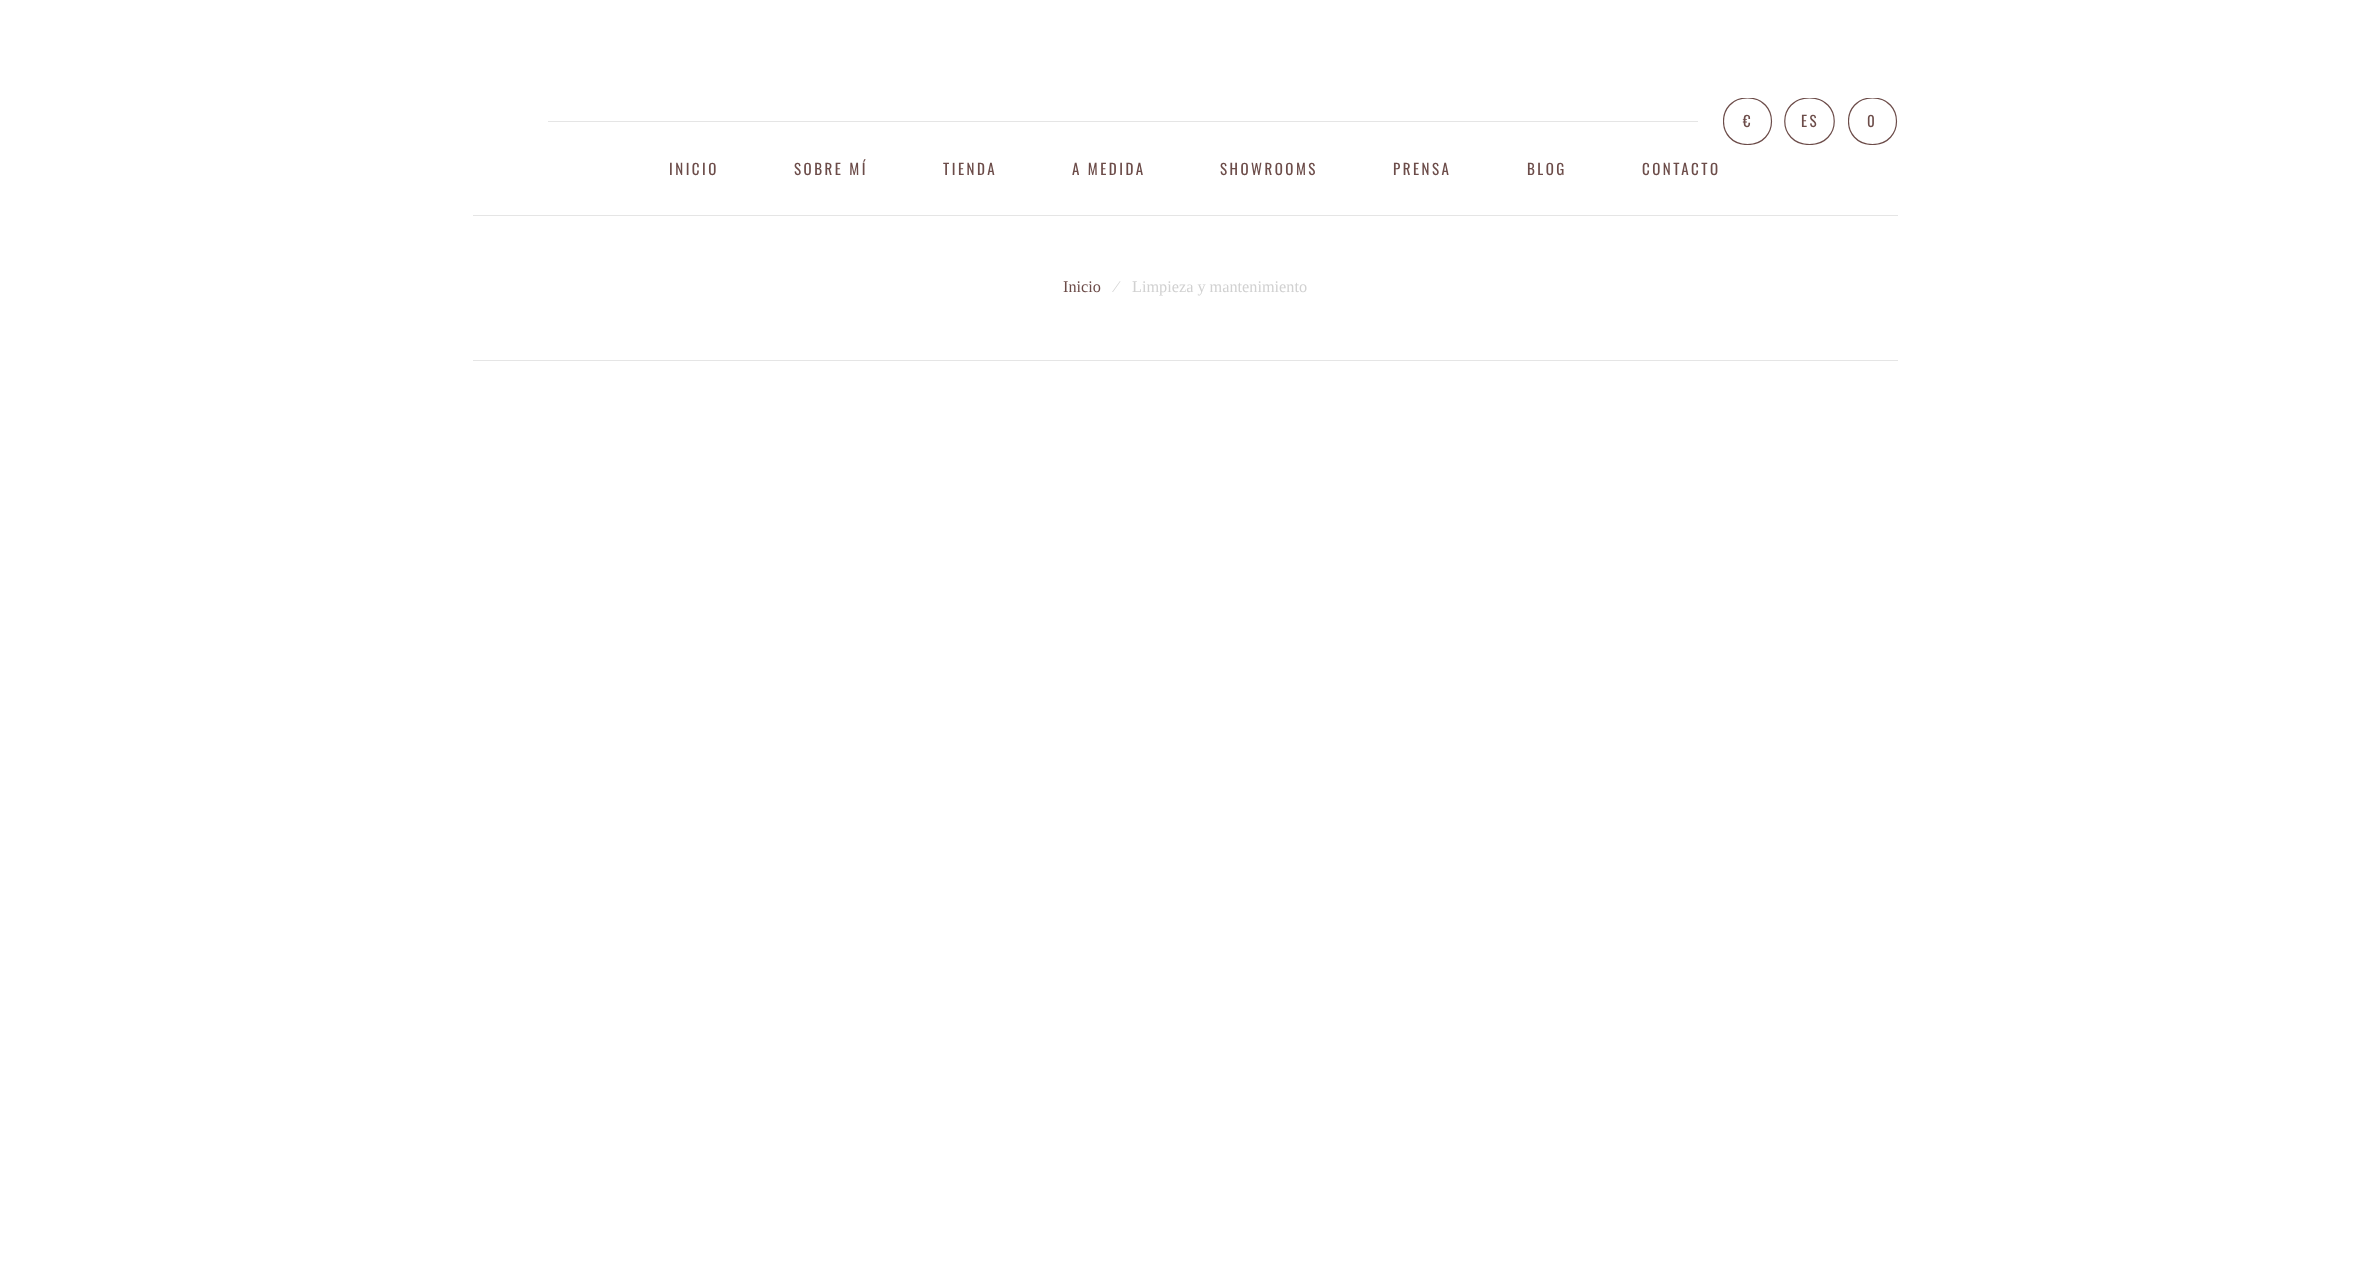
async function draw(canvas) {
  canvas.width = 2369
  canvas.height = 1262
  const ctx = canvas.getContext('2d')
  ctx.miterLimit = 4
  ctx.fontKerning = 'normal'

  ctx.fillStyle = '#fff'
  ctx.fillRect(0, 0, 2369, 1262)
  ctx.fillStyle = '#e5e5e5'
  ctx.fillRect(473, 215, 1425, 1)
  ctx.save()
  ctx.beginPath()
  ctx.rect(1723, 98, 50, 47)
  ctx.clip()
  ctx.beginPath()
  ctx.moveTo(1747.5, 98)
  ctx.bezierCurveTo(1779.5, 98, 1779.5, 144.5, 1747.5, 144.5)
  ctx.bezierCurveTo(1715.5, 144.5, 1715.5, 98, 1747.5, 98)
  ctx.closePath()
  ctx.strokeStyle = '#6c4c49'
  ctx.lineWidth = 1.2
  ctx.stroke()
  ctx.restore()
  ctx.letterSpacing = '2.5px'
  ctx.font = '15px Oswald'
  ctx.fillStyle = '#6c4c49'
  ctx.fillText('€', 1743, 127)
  ctx.save()
  ctx.beginPath()
  ctx.rect(1784, 98, 51, 47)
  ctx.clip()
  ctx.beginPath()
  ctx.moveTo(1809.5, 98)
  ctx.bezierCurveTo(1842.5, 98, 1842.5, 144.5, 1809.5, 144.5)
  ctx.bezierCurveTo(1776.5, 144.5, 1776.5, 98, 1809.5, 98)
  ctx.closePath()
  ctx.strokeStyle = '#6c4c49'
  ctx.lineWidth = 1.2
  ctx.stroke()
  ctx.restore()
  ctx.fillText('ES', 1801, 127)
  ctx.save()
  ctx.beginPath()
  ctx.rect(1848, 98, 50, 47)
  ctx.clip()
  ctx.beginPath()
  ctx.moveTo(1872.5, 98)
  ctx.bezierCurveTo(1904.5, 98, 1904.5, 144.5, 1872.5, 144.5)
  ctx.bezierCurveTo(1840.5, 144.5, 1840.5, 98, 1872.5, 98)
  ctx.closePath()
  ctx.strokeStyle = '#6c4c49'
  ctx.lineWidth = 1.2
  ctx.stroke()
  ctx.restore()
  ctx.fillText('0', 1867, 127)
  ctx.fillText('INICIO', 669, 175)
  ctx.fillText('SOBRE MÍ', 794, 175)
  ctx.fillText('TIENDA', 943, 175)
  ctx.fillText('A MEDIDA', 1072, 175)
  ctx.fillText('SHOWROOMS', 1220, 175)
  ctx.fillText('PRENSA', 1393, 175)
  ctx.fillText('BLOG', 1527, 175)
  ctx.fillText('CONTACTO', 1642, 175)
  ctx.fillStyle = '#e5e5e5'
  ctx.fillRect(548, 121, 1150, 1)
  ctx.fillRect(473, 360, 1425, 1)
  ctx.letterSpacing = '0px'
  ctx.font = '16.25px Liberation Serif'
  ctx.fillStyle = '#6c4c49'
  ctx.fillText('Inicio', 1063, 292)
  ctx.fillStyle = '#d1d1d1'
  ctx.fillText('⁄', 1115, 292)
  ctx.fillText('Limpieza y mantenimiento', 1132, 292)
}

draw(document.querySelector('canvas'))
